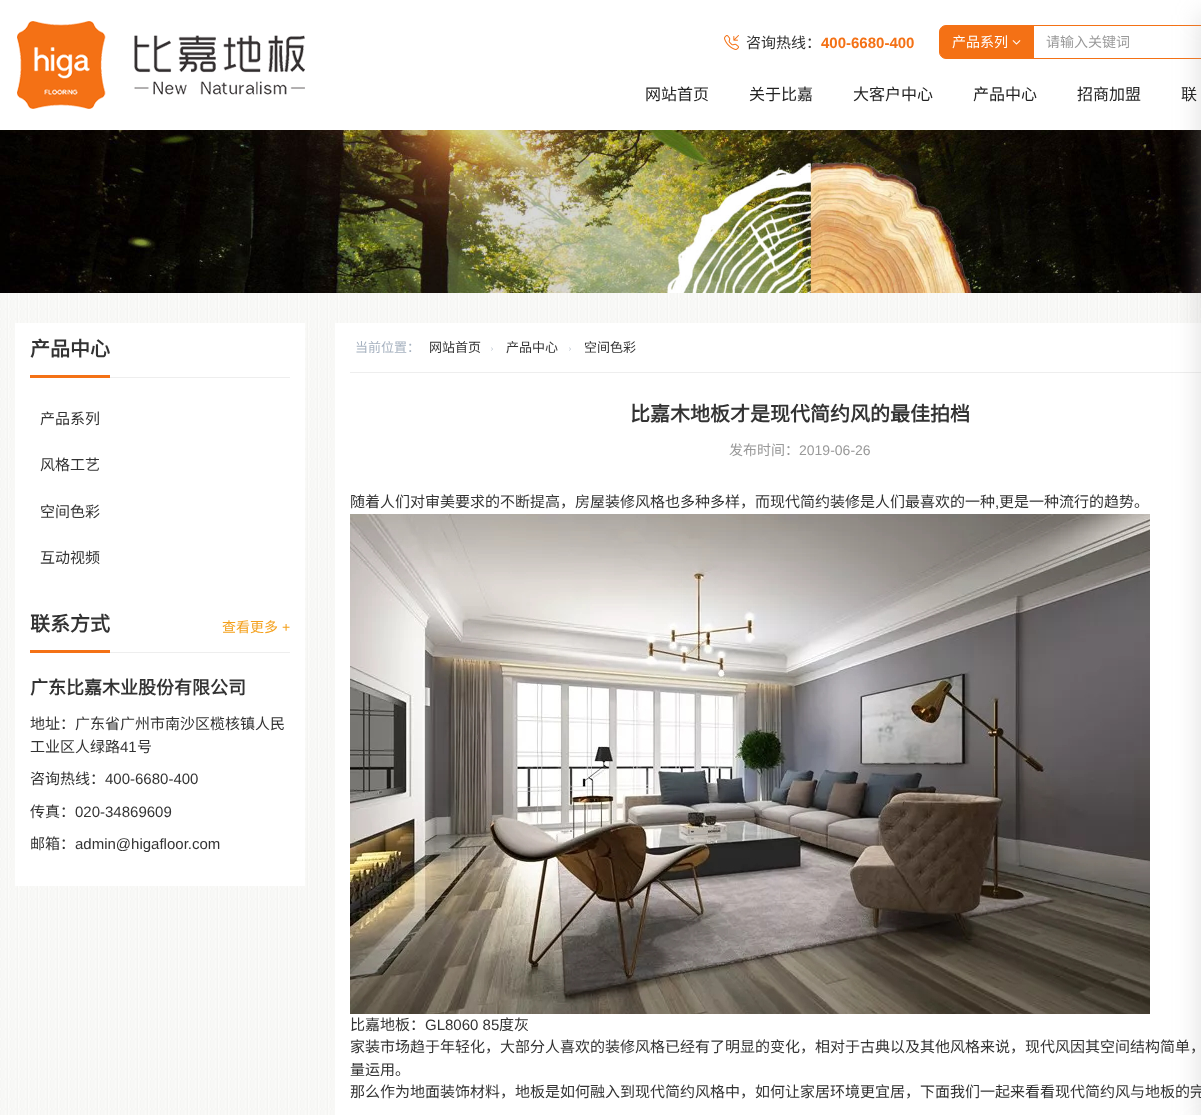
async function draw(canvas) {
  canvas.width = 1201
  canvas.height = 1115
  const ctx = canvas.getContext('2d')
  ctx.miterLimit = 4
  ctx.fontKerning = 'normal'
  async function loadImage(src) {
    const img = new Image()
    img.src = src
    await img.decode()
    return img
  }

  ctx.fillStyle = '#fff'
  ctx.fillRect(0, 0, 1201, 1115)
  ctx.drawImage(await loadImage('image0.png'), 0, 293, 1201, 822)
  ctx.fillStyle = '#f47115'
  ctx.beginPath()
  ctx.roundRect(939.5, 25.5, 94, 33, [6.5, 0, 0, 6.5])
  ctx.fill()
  ctx.strokeStyle = '#f47115'
  ctx.stroke()
  ctx.strokeRect(1033.5, 25.5, 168, 33)
  ctx.drawImage(await loadImage('image4.png'), 0, 130, 1201, 163)
  ctx.fillStyle = '#fff'
  ctx.fillRect(335, 323, 866, 792)
  ctx.fillStyle = '#eee'
  ctx.fillRect(350, 372, 851, 1)
  ctx.fillStyle = '#a7a5a561'
  ctx.filter = 'blur(13.5px)'
  ctx.beginPath()
  ctx.rect(1201, 15, 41, 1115)
  ctx.fill()
  ctx.filter = 'none'
  ctx.drawImage(await loadImage('image1.png'), 17, 21, 288, 88)
  ctx.drawImage(await loadImage('image2.png'), 724, 35, 15, 15)
  ctx.font = '15px Noto Sans CJK SC'
  ctx.fillStyle = '#333'
  ctx.fillText('咨询热线：', 746, 48)
  ctx.font = 'bold 15px Liberation Sans'
  ctx.fillStyle = '#f47115'
  ctx.fillText('400-6680-400', 821, 48)
  ctx.font = '14px Noto Sans CJK SC'
  ctx.fillStyle = '#fff'
  ctx.fillText('产品系列', 952, 47)
  ctx.drawImage(await loadImage('image3.png'), 1012, 40, 9, 5)
  ctx.fillStyle = '#999'
  ctx.fillText('请输入关键词', 1046, 47)
  ctx.font = '16px Noto Sans CJK SC'
  ctx.fillStyle = '#232323'
  ctx.fillText('网站首页', 645, 100)
  ctx.fillText('关于比嘉', 749, 100)
  ctx.fillText('大客户中心', 853, 100)
  ctx.fillText('产品中心', 973, 100)
  ctx.fillText('招商加盟', 1077, 100)
  ctx.fillText('联', 1181, 100)
  ctx.fillStyle = '#fff'
  ctx.fillRect(15, 323, 290, 563)
  ctx.fillStyle = '#eee'
  ctx.fillRect(110, 377, 180, 1)
  ctx.fillStyle = '#f47115'
  ctx.fillRect(30, 375, 80, 3)
  ctx.font = 'bold 20px Noto Sans CJK SC'
  ctx.fillStyle = '#333'
  ctx.fillText('产品中心', 30, 356)
  ctx.font = '15px Noto Sans CJK SC'
  ctx.fillText('产品系列', 40, 424)
  ctx.fillText('风格工艺', 40, 470)
  ctx.fillText('空间色彩', 40, 517)
  ctx.fillText('互动视频', 40, 563)
  ctx.fillStyle = '#eee'
  ctx.fillRect(110, 652, 180, 1)
  ctx.fillStyle = '#f47115'
  ctx.fillRect(30, 650, 80, 3)
  ctx.font = 'bold 20px Noto Sans CJK SC'
  ctx.fillStyle = '#333'
  ctx.fillText('联系方式', 30, 631)
  ctx.font = '14px Noto Sans CJK SC'
  ctx.fillStyle = '#f4a01c'
  ctx.fillText('查看更多', 222, 632)
  ctx.font = '14px Liberation Sans'
  ctx.fillText('+', 282, 632)
  ctx.font = 'bold 18px Noto Sans CJK SC'
  ctx.fillStyle = '#333'
  ctx.fillText('广东比嘉木业股份有限公司', 30, 694)
  ctx.font = '15px Noto Sans CJK SC'
  ctx.fillText('地址：广东省广州市南沙区榄核镇人民', 30, 729)
  ctx.fillText('工业区人绿路', 30, 752)
  ctx.font = '15px Liberation Sans'
  ctx.fillText('41', 120, 752)
  ctx.font = '15px Noto Sans CJK SC'
  ctx.fillText('号', 137, 752)
  ctx.fillText('咨询热线：', 30, 784)
  ctx.font = '15px Liberation Sans'
  ctx.fillText('400-6680-400', 105, 784)
  ctx.font = '15px Noto Sans CJK SC'
  ctx.fillText('传真：', 30, 817)
  ctx.font = '15px Liberation Sans'
  ctx.fillText('020-34869609', 75, 817)
  ctx.font = '15px Noto Sans CJK SC'
  ctx.fillText('邮箱：', 30, 849)
  ctx.font = '15px Liberation Sans'
  ctx.fillText('admin@higafloor.com', 75, 849)
  ctx.font = '13px Noto Sans CJK SC'
  ctx.fillStyle = '#a7b2c0'
  ctx.fillText('当前位置：', 355, 352)
  ctx.fillStyle = '#333'
  ctx.fillText('网站首页', 429, 352)
  ctx.drawImage(await loadImage('image5.png'), 491, 347, 2, 4)
  ctx.fillText('产品中心', 506, 352)
  ctx.drawImage(await loadImage('image5.png'), 569, 347, 2, 4)
  ctx.fillText('空间色彩', 584, 352)
  ctx.font = 'bold 20px Noto Sans CJK SC'
  ctx.fillText('比嘉木地板才是现代简约风的最佳拍档', 630, 421)
  ctx.font = '14px Noto Sans CJK SC'
  ctx.fillStyle = '#999'
  ctx.fillText('发布时间：', 729, 455)
  ctx.font = '14px Liberation Sans'
  ctx.fillText('2019-06-26', 799, 455)
  ctx.font = '15px Noto Sans CJK SC'
  ctx.fillStyle = '#333'
  ctx.fillText('随着人们对审美要求的不断提高，房屋装修风格也多种多样，而现代简约装修是人们最喜欢的一种', 350, 507)
  ctx.font = '15px Liberation Sans'
  ctx.fillText(',', 995, 507)
  ctx.font = '15px Noto Sans CJK SC'
  ctx.fillText('更是一种流行的趋势。', 999, 507)
  ctx.drawImage(await loadImage('image6.png'), 350, 514, 800, 500)
  ctx.fillText('比嘉地板：', 350, 1030)
  ctx.font = '15px Liberation Sans'
  ctx.fillText('GL8060 85', 425, 1030)
  ctx.font = '15px Noto Sans CJK SC'
  ctx.fillText('度灰', 499, 1030)
  ctx.fillText('家装市场趋于年轻化，大部分人喜欢的装修风格已经有了明显的变化，相对于古典以及其他风格来说，现代风因其空间结构简单，', 350, 1052)
  ctx.fillText('量运用。', 350, 1075)
  ctx.fillText('那么作为地面装饰材料，地板是如何融入到现代简约风格中，如何让家居环境更宜居，下面我们一起来看看现代简约风与地板的完', 350, 1097)
}

draw(document.querySelector('canvas'))
